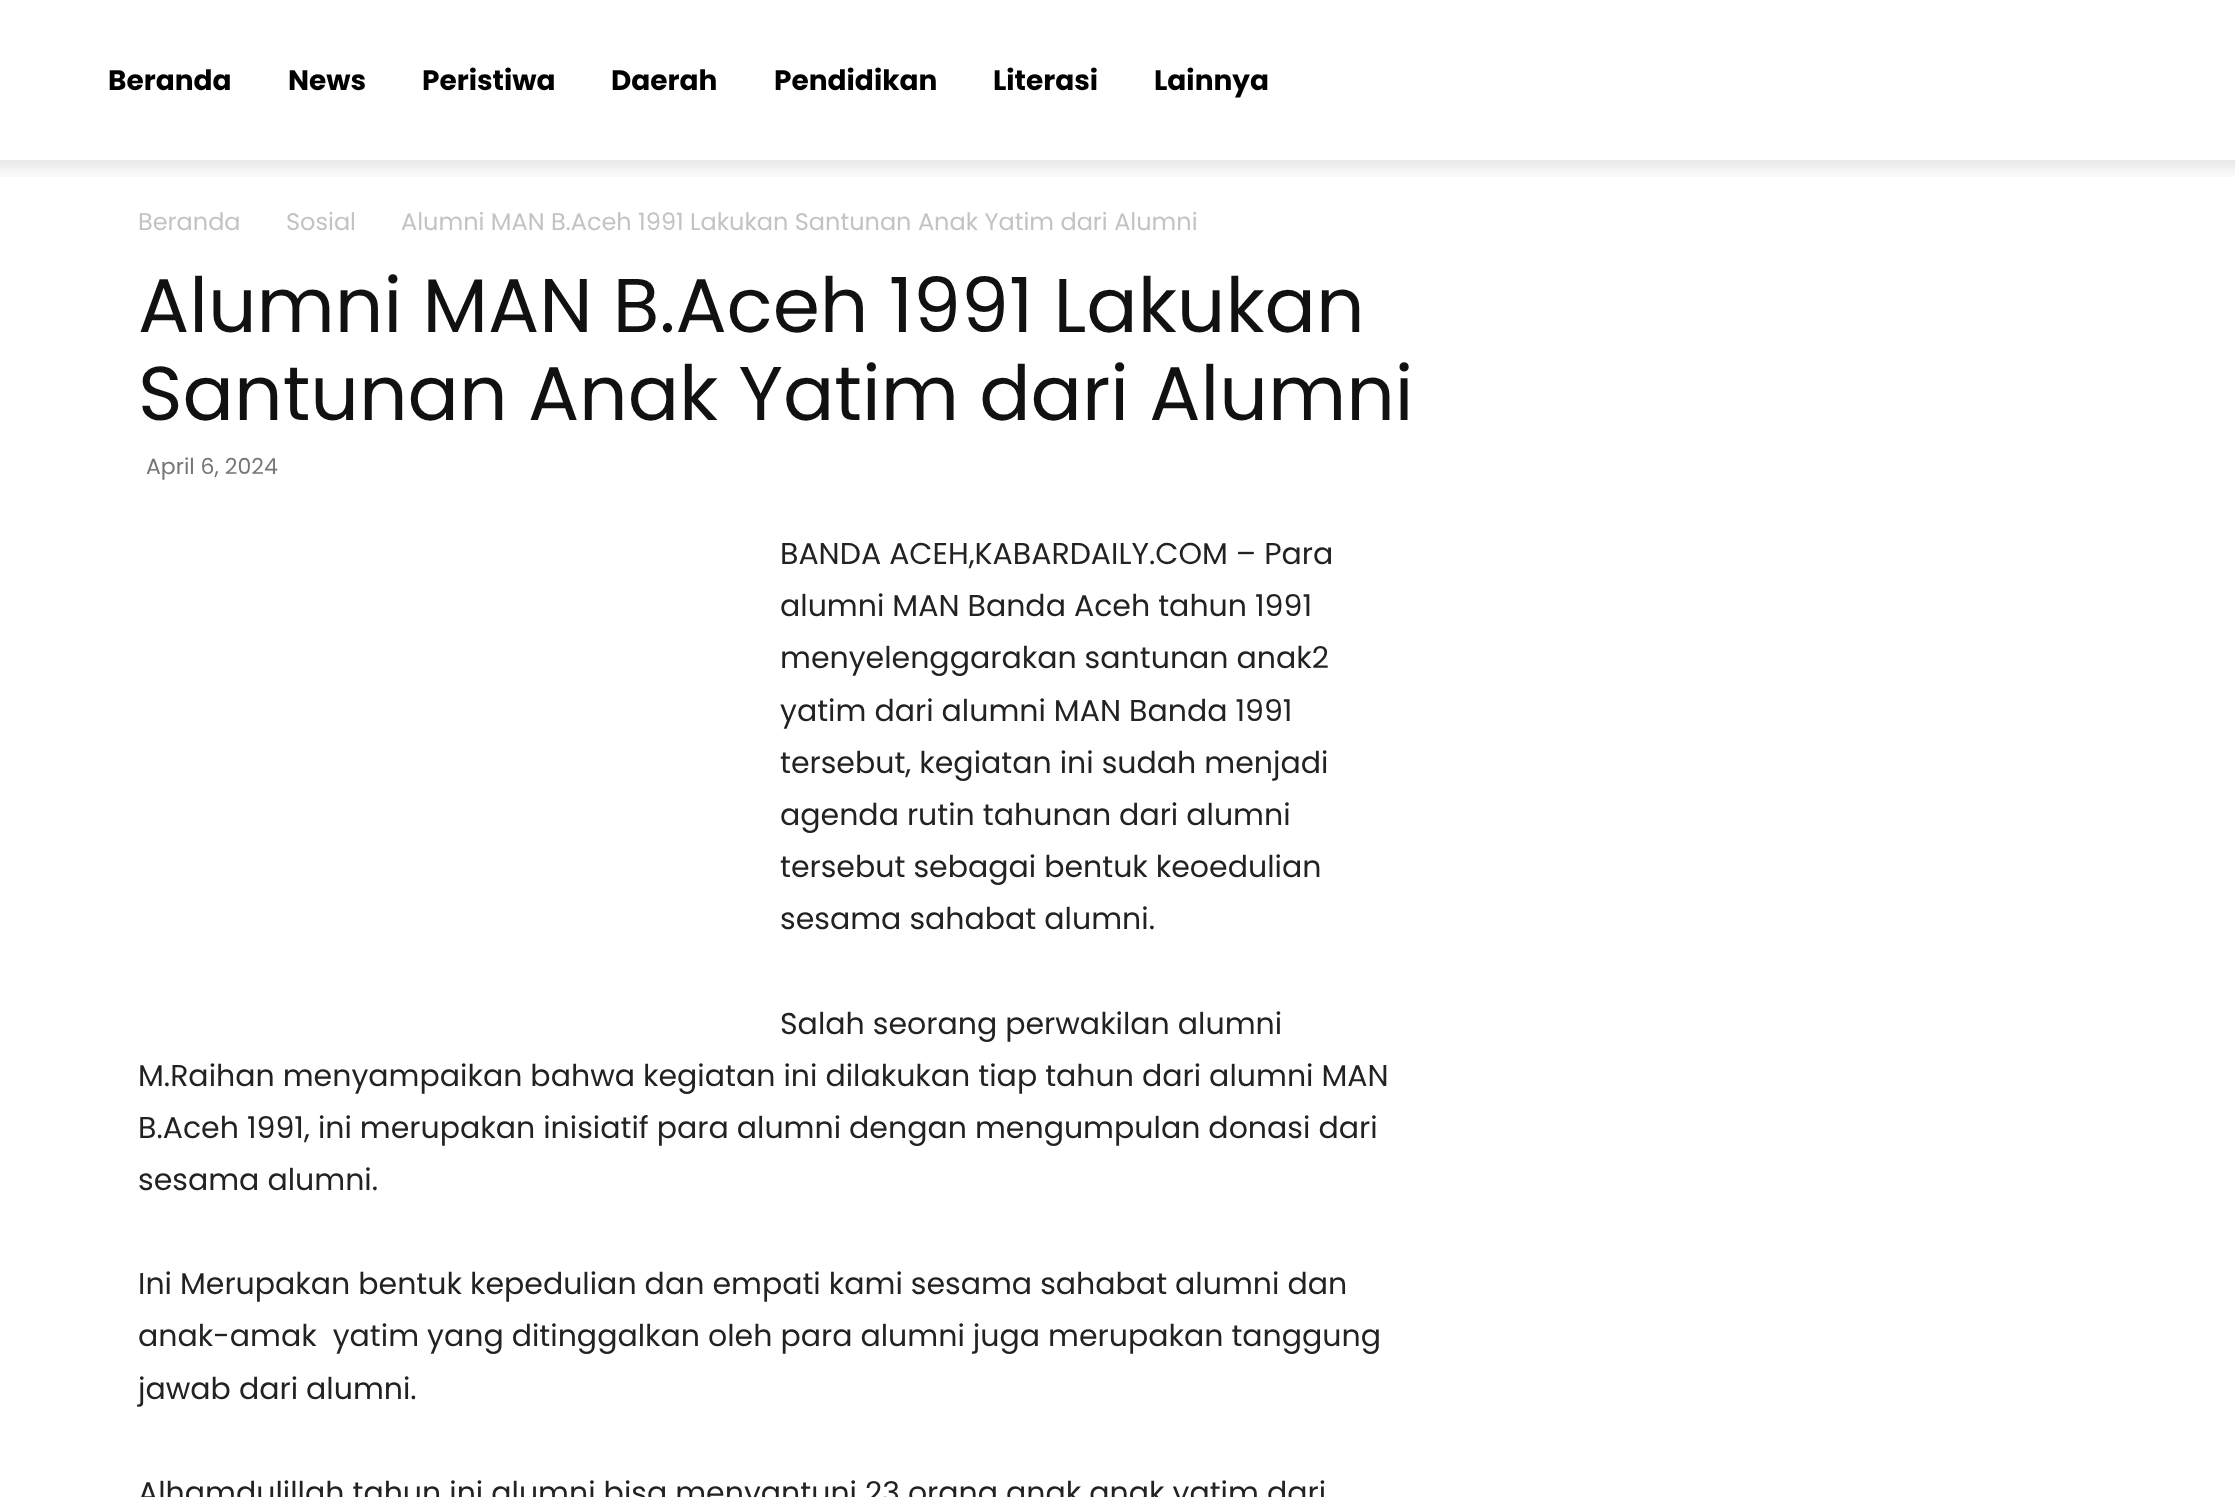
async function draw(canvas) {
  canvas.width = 2235
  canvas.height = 1497
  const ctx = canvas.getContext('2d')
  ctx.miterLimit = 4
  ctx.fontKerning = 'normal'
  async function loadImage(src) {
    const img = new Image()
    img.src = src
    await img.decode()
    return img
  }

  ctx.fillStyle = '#fff'
  ctx.fillRect(0, 0, 2235, 1497)
  ctx.font = 'bold 28px Poppins'
  ctx.fillStyle = '#000'
  ctx.fillText('Beranda', 108, 90)
  ctx.fillText('News', 288, 90)
  ctx.fillText('Peristiwa', 422, 90)
  ctx.fillText('Daerah', 611, 90)
  ctx.fillText('Pendidikan', 774, 90)
  ctx.fillText('Literasi', 993, 90)
  ctx.fillText('Lainnya', 1154, 90)
  ctx.drawImage(await loadImage('image0.png'), 0, 160, 2235, 17)
  ctx.font = '24px Poppins'
  ctx.fillStyle = '#c3c3c3'
  ctx.fillText('Beranda', 138, 230)
  ctx.fillText('Sosial', 286, 230)
  ctx.fillText('Alumni MAN B.Aceh 1991 Lakukan Santunan Anak Yatim dari Alumni', 401, 230)
  ctx.font = '76px Poppins'
  ctx.fillStyle = '#111'
  ctx.fillText('Alumni MAN B.Aceh 1991 Lakukan', 138, 332)
  ctx.fillText('Santunan Anak Yatim dari Alumni', 138, 420)
  ctx.font = '22px Poppins'
  ctx.fillStyle = '#767676'
  ctx.fillText('April 6, 2024', 146, 474)
  ctx.font = '30px Poppins'
  ctx.fillStyle = '#222'
  ctx.fillText('BANDA ACEH,KABARDAILY.COM – Para', 780, 564)
  ctx.fillText('alumni MAN Banda Aceh tahun 1991', 780, 616)
  ctx.fillText('menyelenggarakan santunan anak2', 780, 668)
  ctx.fillText('yatim dari alumni MAN Banda 1991', 780, 721)
  ctx.fillText('tersebut, kegiatan ini sudah menjadi', 780, 773)
  ctx.fillText('agenda rutin tahunan dari alumni', 780, 825)
  ctx.fillText('tersebut sebagai bentuk keoedulian', 780, 877)
  ctx.fillText('sesama sahabat alumni.', 780, 929)
  ctx.fillText('Salah seorang perwakilan alumni', 780, 1034)
  ctx.fillText('M.Raihan menyampaikan bahwa kegiatan ini dilakukan tiap tahun dari alumni MAN', 138, 1086)
  ctx.fillText('B.Aceh 1991, ini merupakan inisiatif para alumni dengan mengumpulan donasi dari', 138, 1138)
  ctx.fillText('sesama alumni.', 138, 1190)
  ctx.fillText('Ini Merupakan bentuk kepedulian dan empati kami sesama sahabat alumni dan', 138, 1294)
  ctx.fillText('anak-amak  yatim yang ditinggalkan oleh para alumni juga merupakan tanggung', 138, 1346)
  ctx.fillText('jawab dari alumni.', 138, 1399)
  ctx.fillText('Alhamdulillah tahun ini alumni bisa menyantuni 23 orang anak anak yatim dari', 138, 1503)
}

draw(document.querySelector('canvas'))
